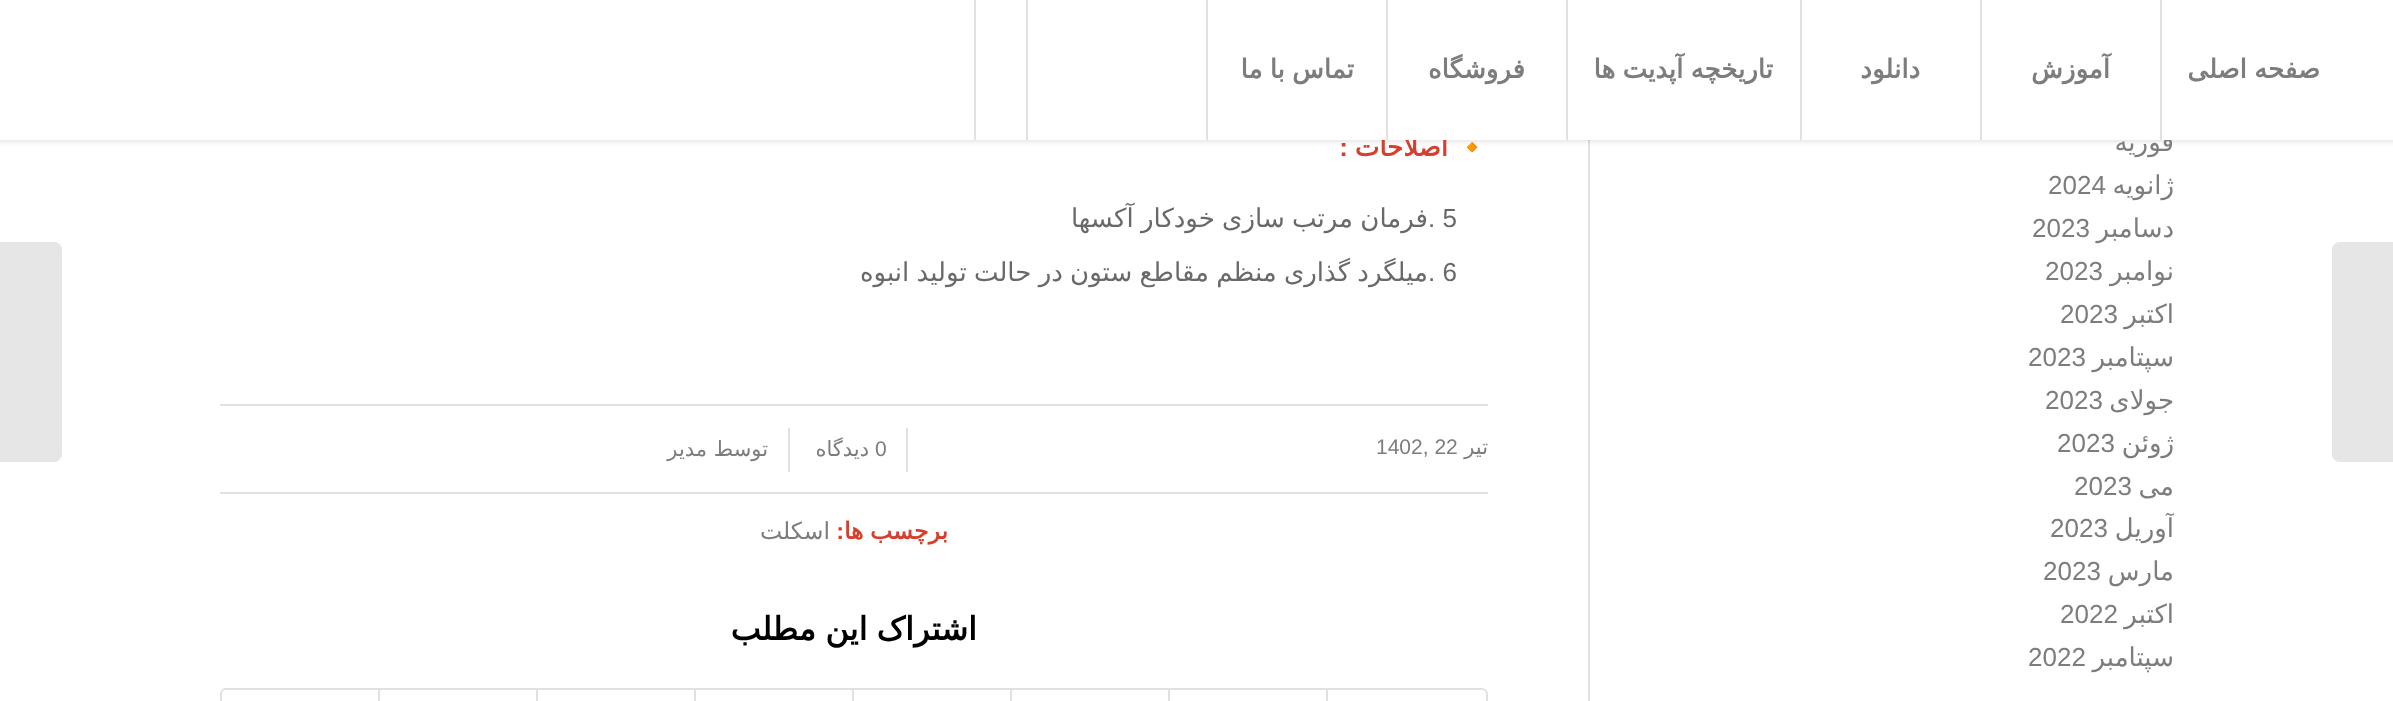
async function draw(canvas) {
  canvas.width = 2393
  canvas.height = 701
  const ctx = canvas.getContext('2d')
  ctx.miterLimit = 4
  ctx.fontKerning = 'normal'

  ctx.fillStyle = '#fff'
  ctx.fillRect(0, 0, 2393, 701)
  ctx.fillStyle = '#e1e1e1'
  ctx.fillRect(1588, 140, 2, 561)
  ctx.fillStyle = '#0000001a'
  ctx.filter = 'blur(2px)'
  ctx.beginPath()
  ctx.rect(-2, -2, 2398, 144)
  ctx.fill()
  ctx.filter = 'none'
  ctx.direction = 'rtl'
  ctx.font = '26px DejaVu Sans'
  ctx.fillStyle = '#7d7d7d'
  ctx.fillText('فوریه', 2174, 151)
  ctx.direction = 'ltr'
  ctx.font = 'bold 26px Noto Color Emoji'
  ctx.fillStyle = '#d63e2d'
  ctx.fillText('🔸️', 1456, 156)
  ctx.direction = 'rtl'
  ctx.font = 'bold 26px DejaVu Sans'
  ctx.fillText('اصلاحات', 1448, 156)
  ctx.fillStyle = '#fff'
  ctx.fillRect(0, 0, 2393, 140)
  ctx.fillStyle = '#e2e2e2'
  ctx.fillRect(974, 0, 2, 140)
  ctx.fillStyle = '#e1e1e1'
  ctx.fillRect(2160, 0, 2, 140)
  ctx.wordSpacing = '-1px'
  ctx.fillStyle = '#7d7d7d'
  ctx.fillText('صفحه اصلی', 2320, 78)
  ctx.fillStyle = '#e1e1e1'
  ctx.fillRect(1980, 0, 2, 140)
  ctx.wordSpacing = '0px'
  ctx.fillStyle = '#7d7d7d'
  ctx.fillText('آموزش', 2110, 78)
  ctx.fillStyle = '#e1e1e1'
  ctx.fillRect(1800, 0, 2, 140)
  ctx.fillStyle = '#7d7d7d'
  ctx.fillText('دانلود', 1920, 78)
  ctx.fillStyle = '#e1e1e1'
  ctx.fillRect(1566, 0, 2, 140)
  ctx.wordSpacing = '-1px'
  ctx.fillStyle = '#7d7d7d'
  ctx.fillText('تاریخچه آپدیت ها', 1773, 78)
  ctx.fillStyle = '#e1e1e1'
  ctx.fillRect(1386, 0, 2, 140)
  ctx.wordSpacing = '0px'
  ctx.fillStyle = '#7d7d7d'
  ctx.fillText('فروشگاه', 1525, 78)
  ctx.fillStyle = '#e1e1e1'
  ctx.fillRect(1206, 0, 2, 140)
  ctx.wordSpacing = '-1px'
  ctx.fillStyle = '#7d7d7d'
  ctx.fillText('تماس با ما', 1354, 78)
  ctx.fillStyle = '#e1e1e1'
  ctx.fillRect(1026, 0, 2, 140)
  ctx.fillStyle = '#e6e6e6'
  ctx.beginPath()
  ctx.moveTo(2340, 242)
  ctx.lineTo(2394, 242)
  ctx.lineTo(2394, 462)
  ctx.lineTo(2340, 462)
  ctx.bezierCurveTo(2335.5, 462, 2332, 458.5, 2332, 454)
  ctx.lineTo(2332, 250)
  ctx.bezierCurveTo(2332, 245.5, 2335.5, 242, 2340, 242)
  ctx.closePath()
  ctx.fill()
  ctx.wordSpacing = '0px'
  ctx.font = '26px DejaVu Sans'
  ctx.fillStyle = '#7d7d7d'
  ctx.fillText('ژانویه', 2174, 194)
  ctx.direction = 'ltr'
  ctx.font = '26px Liberation Sans'
  ctx.fillText('2024', 2048, 194)
  ctx.direction = 'rtl'
  ctx.font = '26px DejaVu Sans'
  ctx.fillText('دسامبر', 2174, 237)
  ctx.direction = 'ltr'
  ctx.font = '26px Liberation Sans'
  ctx.fillText('2023', 2032, 237)
  ctx.direction = 'rtl'
  ctx.font = '26px DejaVu Sans'
  ctx.fillText('نوامبر', 2174, 280)
  ctx.direction = 'ltr'
  ctx.font = '26px Liberation Sans'
  ctx.fillText('2023', 2045, 280)
  ctx.direction = 'rtl'
  ctx.font = '26px DejaVu Sans'
  ctx.fillText('اکتبر', 2174, 323)
  ctx.direction = 'ltr'
  ctx.font = '26px Liberation Sans'
  ctx.fillText('2023', 2060, 323)
  ctx.direction = 'rtl'
  ctx.font = '26px DejaVu Sans'
  ctx.fillText('سپتامبر', 2174, 366)
  ctx.direction = 'ltr'
  ctx.font = '26px Liberation Sans'
  ctx.fillText('2023', 2028, 366)
  ctx.direction = 'rtl'
  ctx.font = '26px DejaVu Sans'
  ctx.fillText('جولای', 2174, 409)
  ctx.direction = 'ltr'
  ctx.font = '26px Liberation Sans'
  ctx.fillText('2023', 2045, 409)
  ctx.direction = 'rtl'
  ctx.font = '26px DejaVu Sans'
  ctx.fillText('ژوئن', 2174, 452)
  ctx.direction = 'ltr'
  ctx.font = '26px Liberation Sans'
  ctx.fillText('2023', 2057, 452)
  ctx.direction = 'rtl'
  ctx.font = '26px DejaVu Sans'
  ctx.fillText('می', 2174, 495)
  ctx.direction = 'ltr'
  ctx.font = '26px Liberation Sans'
  ctx.fillText('2023', 2074, 495)
  ctx.save()
  ctx.beginPath()
  ctx.rect(1590, 0, 584, 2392)
  ctx.clip()
  ctx.direction = 'rtl'
  ctx.font = '26px DejaVu Sans'
  ctx.fillText('آوریل', 2174, 537)
  ctx.restore()
  ctx.fillText('2023', 2050, 537)
  ctx.direction = 'rtl'
  ctx.font = '26px DejaVu Sans'
  ctx.fillText('مارس', 2174, 580)
  ctx.direction = 'ltr'
  ctx.font = '26px Liberation Sans'
  ctx.fillText('2023', 2043, 580)
  ctx.direction = 'rtl'
  ctx.font = '26px DejaVu Sans'
  ctx.fillText('اکتبر', 2174, 623)
  ctx.direction = 'ltr'
  ctx.font = '26px Liberation Sans'
  ctx.fillText('2022', 2060, 623)
  ctx.direction = 'rtl'
  ctx.font = '26px DejaVu Sans'
  ctx.fillText('سپتامبر', 2174, 666)
  ctx.direction = 'ltr'
  ctx.font = '26px Liberation Sans'
  ctx.fillText('2022', 2028, 666)
  ctx.direction = 'rtl'
  ctx.font = 'bold 26px Liberation Sans'
  ctx.fillStyle = '#d63e2d'
  ctx.fillText(':', 1348, 156)
  ctx.direction = 'ltr'
  ctx.font = '26px Liberation Sans'
  ctx.fillStyle = '#696969'
  ctx.fillText('. 5', 1428, 227)
  ctx.wordSpacing = '-1px'
  ctx.direction = 'rtl'
  ctx.font = '26px DejaVu Sans'
  ctx.fillText('فرمان مرتب سازی خودکار آکسها', 1428, 227)
  ctx.wordSpacing = '0px'
  ctx.direction = 'ltr'
  ctx.font = '26px Liberation Sans'
  ctx.fillText('. 6', 1428, 281)
  ctx.wordSpacing = '-1px'
  ctx.direction = 'rtl'
  ctx.font = '26px DejaVu Sans'
  ctx.fillText('میلگرد گذاری منظم مقاطع ستون در حالت تولید انبوه', 1428, 281)
  ctx.fillStyle = '#e1e1e1'
  ctx.fillRect(220, 404, 1268, 2)
  ctx.fillRect(220, 492, 1268, 2)
  ctx.wordSpacing = '0px'
  ctx.font = '21px DejaVu Sans'
  ctx.fillStyle = '#7d7d7d'
  ctx.fillText('تیر', 1488, 454)
  ctx.direction = 'ltr'
  ctx.font = '21px Liberation Sans'
  ctx.fillText('1402, 22', 1376, 454)
  ctx.fillStyle = '#e1e1e1'
  ctx.fillRect(906, 428, 2, 44)
  ctx.fillStyle = '#7d7d7d'
  ctx.fillText('0', 875, 456)
  ctx.direction = 'rtl'
  ctx.font = '21px DejaVu Sans'
  ctx.fillText('دیدگاه', 869, 456)
  ctx.fillStyle = '#e1e1e1'
  ctx.fillRect(788, 428, 2, 44)
  ctx.fillStyle = '#7d7d7d'
  ctx.fillText('توسط', 768, 456)
  ctx.fillText('مدیر', 707, 456)
  ctx.wordSpacing = '-1px'
  ctx.font = 'bold 23.5px DejaVu Sans'
  ctx.fillStyle = '#d63e2d'
  ctx.fillText('برچسب ها', 948, 539)
  ctx.wordSpacing = '0px'
  ctx.font = 'bold 23.5px Liberation Sans'
  ctx.fillText(':', 844, 539)
  ctx.font = '23.5px DejaVu Sans'
  ctx.fillStyle = '#7d7d7d'
  ctx.fillText('اسکلت', 830, 539)
  ctx.wordSpacing = '-1px'
  ctx.font = 'bold 32px DejaVu Sans'
  ctx.fillStyle = '#000'
  ctx.fillText('اشتراک این مطلب', 977, 640)
  ctx.beginPath()
  ctx.roundRect(221, 689, 1266, 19, 5)
  ctx.strokeStyle = '#e1e1e1'
  ctx.lineWidth = 2
  ctx.stroke()
  ctx.fillStyle = '#e1e1e1'
  ctx.fillRect(1326, 690, 2, 11)
  ctx.fillRect(1168, 690, 2, 11)
  ctx.fillRect(1010, 690, 2, 11)
  ctx.fillRect(852, 690, 2, 11)
  ctx.fillRect(694, 690, 2, 11)
  ctx.fillRect(536, 690, 2, 11)
  ctx.fillRect(378, 690, 2, 11)
  ctx.fillStyle = '#e6e6e6'
  ctx.beginPath()
  ctx.roundRect(0, 242, 62, 220, [0, 8, 8, 0])
  ctx.fill()
}

draw(document.querySelector('canvas'))
